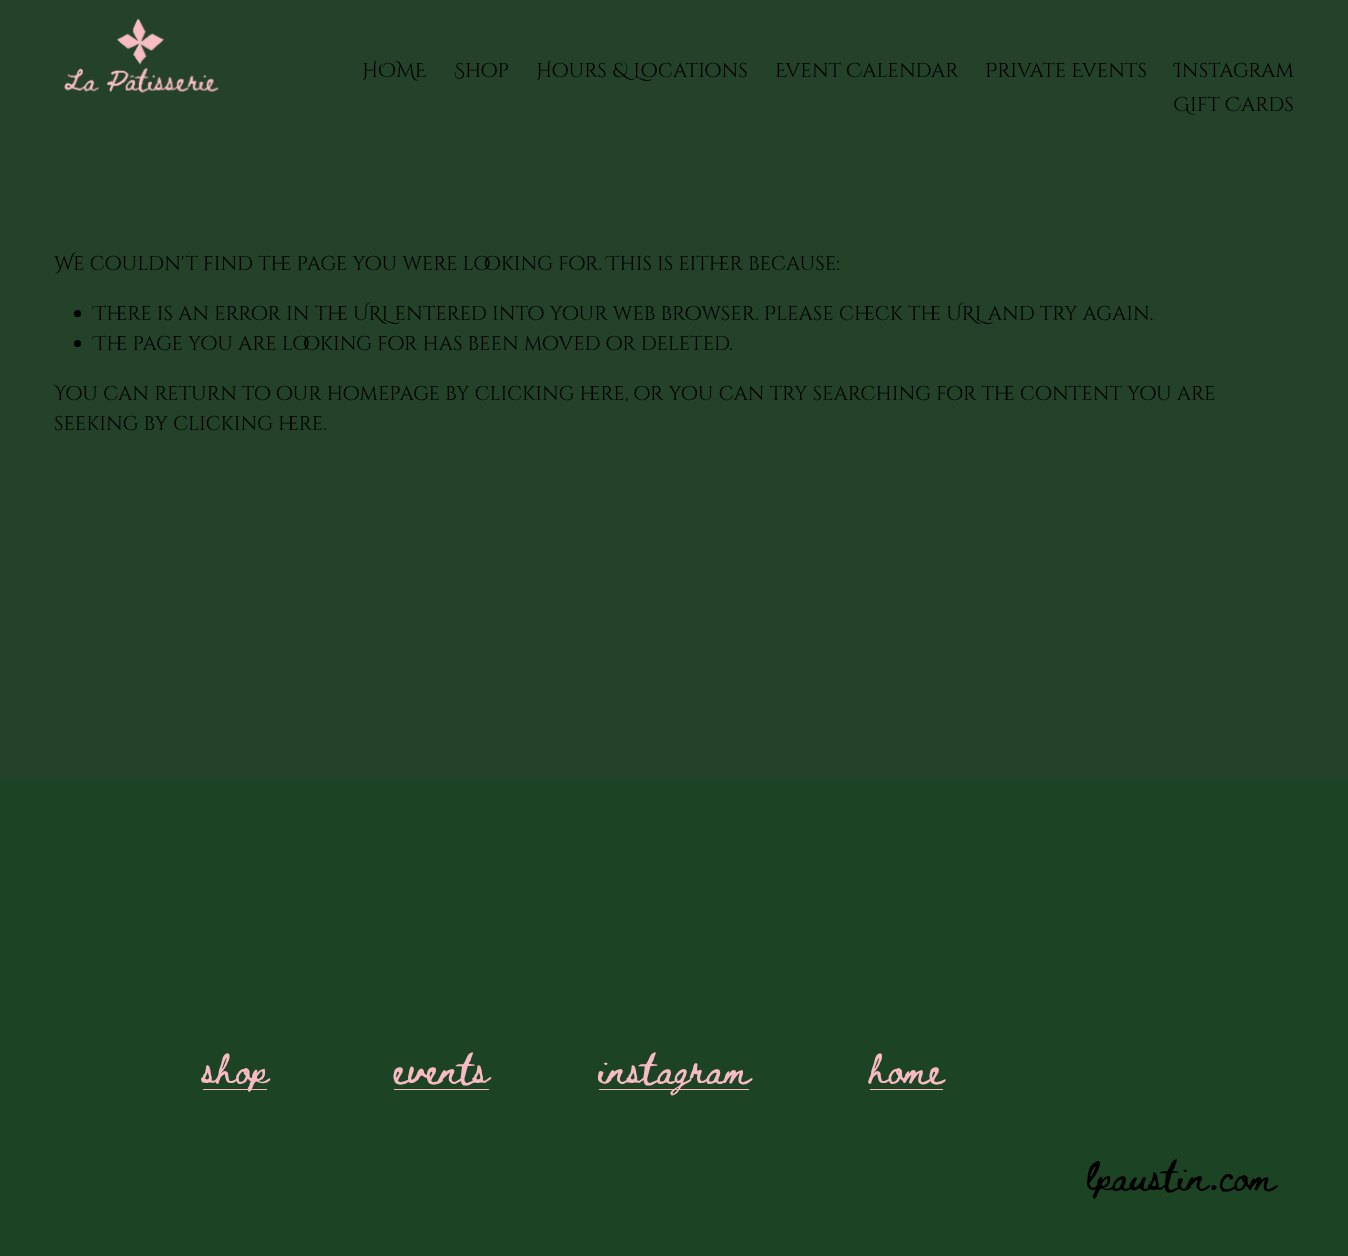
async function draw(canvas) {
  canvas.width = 1348
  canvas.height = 1256
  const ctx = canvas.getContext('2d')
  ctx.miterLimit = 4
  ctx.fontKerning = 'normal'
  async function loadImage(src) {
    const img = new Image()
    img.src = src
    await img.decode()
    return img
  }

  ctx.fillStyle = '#234229'
  ctx.fillRect(0, 0, 1348, 1256)
  ctx.drawImage(await loadImage('image0.png'), 64, 18, 155, 75)
  ctx.font = '20px Cinzel Decorative'
  ctx.fillStyle = '#000'
  ctx.fillText('HOME', 362, 77)
  ctx.fillText('Shop', 454, 77)
  ctx.fillText('Hours & Locations', 536, 77)
  ctx.fillText('Event Calendar', 775, 77)
  ctx.fillText('Private Events', 985, 77)
  ctx.fillText('Instagram', 1174, 77)
  ctx.fillText('Gift Cards', 1173, 111)
  ctx.fillText('We couldn\'t find the page you were looking for. This is either because:', 54, 270)
  ctx.beginPath()
  ctx.arc(77.5, 313.5, 3.5, 0, 2 * Math.PI)
  ctx.fill()
  ctx.fillText('There is an error in the URL entered into your web browser. Please check the URL and try again.', 94, 320)
  ctx.beginPath()
  ctx.arc(77.5, 343.5, 3.5, 0, 2 * Math.PI)
  ctx.fill()
  ctx.fillText('The page you are looking for has been moved or deleted.', 94, 350)
  ctx.fillText('You can return to our homepage by clicking here, or you can try searching for the content you are', 54, 400)
  ctx.fillText('seeking by clicking here.', 54, 430)
  ctx.fillStyle = '#1d4325'
  ctx.fillRect(0, 778, 1348, 478)
  ctx.fillStyle = '#f8bbc3'
  ctx.fillRect(203, 1089, 64, 1)
  ctx.letterSpacing = '-0.6px'
  ctx.font = '29.75px Beth Ellen'
  ctx.fillText('shop', 203, 1083)
  ctx.fillText('events', 394, 1083)
  ctx.fillRect(394, 1089, 95, 1)
  ctx.fillRect(599, 1089, 150, 1)
  ctx.fillText('instagram', 599, 1083)
  ctx.fillText('home', 870, 1083)
  ctx.fillRect(870, 1089, 73, 1)
  ctx.fillStyle = '#000'
  ctx.fillText('lpaustin.com', 1087, 1190)
}

draw(document.querySelector('canvas'))
